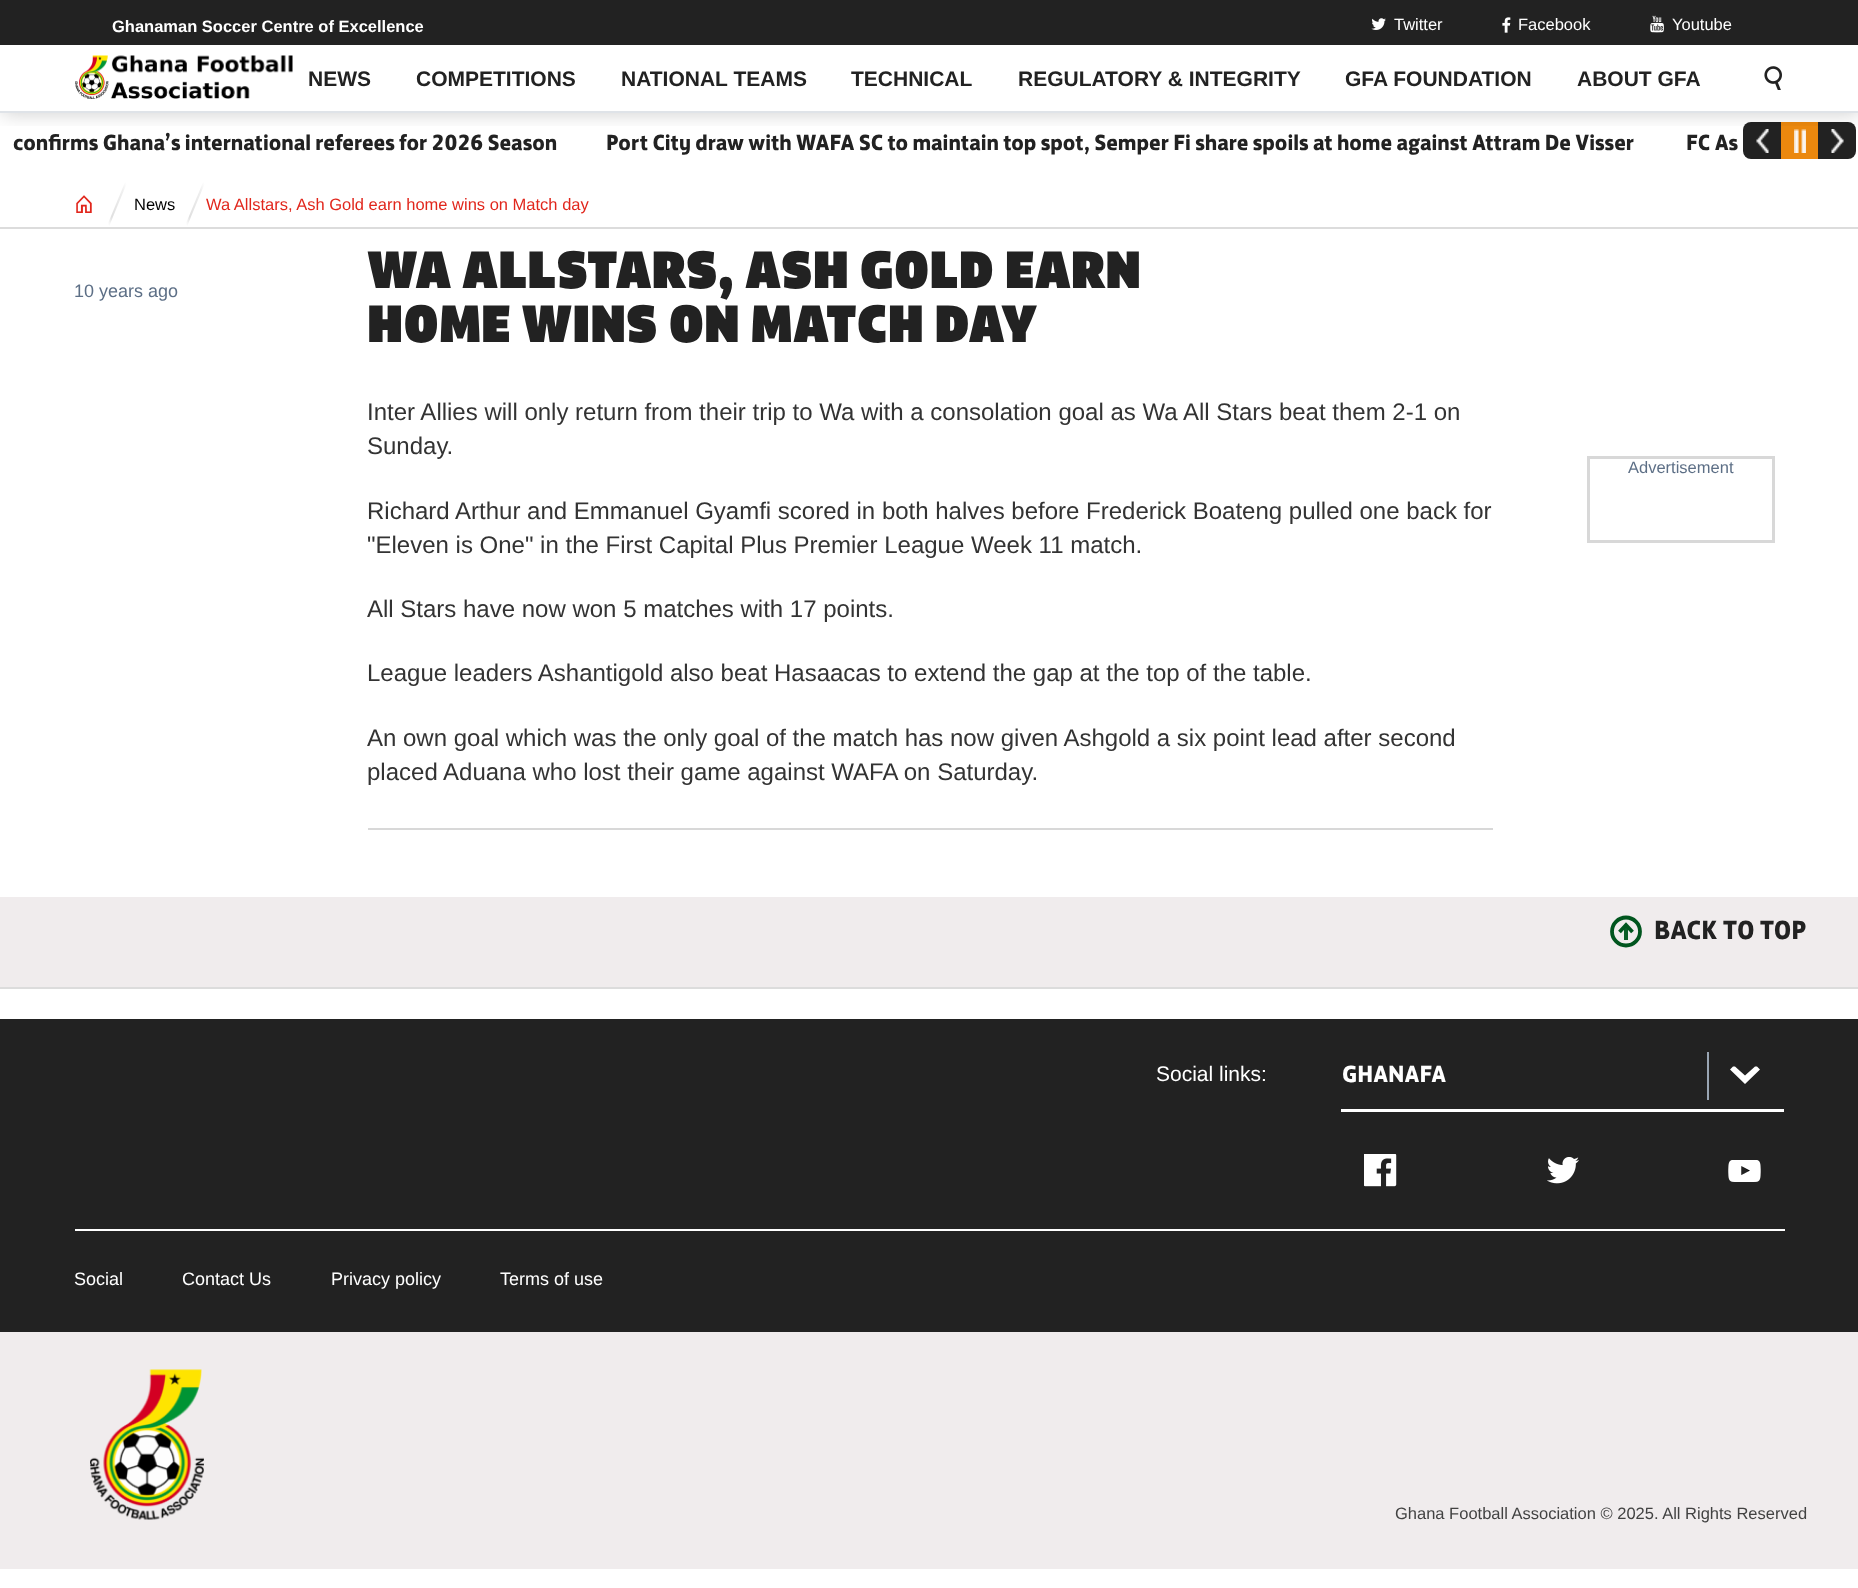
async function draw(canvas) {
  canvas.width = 1858
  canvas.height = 1588
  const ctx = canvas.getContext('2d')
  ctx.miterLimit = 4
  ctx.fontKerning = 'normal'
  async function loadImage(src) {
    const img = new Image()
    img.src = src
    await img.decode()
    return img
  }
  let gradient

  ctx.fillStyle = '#fff'
  ctx.fillRect(0, 0, 1858, 1588)
  ctx.fillStyle = '#222'
  ctx.beginPath()
  ctx.roundRect(1743, 122, 38, 37, [8, 0, 0, 8])
  ctx.fill()
  ctx.drawImage(await loadImage('image5.png'), 1756, 129, 13, 24)
  ctx.fillStyle = '#eb880e'
  ctx.fillRect(1781, 122, 37, 37)
  ctx.drawImage(await loadImage('image6.png'), 1794, 129, 12, 24)
  ctx.fillStyle = '#222'
  ctx.beginPath()
  ctx.roundRect(1818, 122, 38, 37, [0, 8, 8, 0])
  ctx.fill()
  ctx.drawImage(await loadImage('image7.png'), 1831, 129, 13, 24)
  ctx.save()
  ctx.beginPath()
  ctx.rect(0, 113, 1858, 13)
  ctx.clip()
  ctx.fillStyle = '#00000033'
  ctx.filter = 'blur(10px)'
  ctx.beginPath()
  ctx.rect(2, 2, 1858, 111)
  ctx.fill()
  ctx.filter = 'none'
  ctx.restore()
  ctx.drawImage(await loadImage('image0.png'), 75, 55, 218, 44)
  ctx.fillStyle = '#dfe3e8'
  ctx.fillRect(0, 111, 1858, 2)
  ctx.fillStyle = '#222'
  ctx.fillRect(0, 0, 1858, 45)
  ctx.font = 'bold 16.5px Liberation Sans'
  ctx.fillStyle = '#fff'
  ctx.fillText('Ghanaman Soccer Centre of Excellence', 112, 32)
  ctx.drawImage(await loadImage('image1.png'), 1371, 18, 15, 12)
  ctx.font = '16.5px Liberation Sans'
  ctx.fillText('Twitter', 1394, 30)
  ctx.drawImage(await loadImage('image2.png'), 1502, 17, 9, 16)
  ctx.fillText('Facebook', 1518, 30)
  ctx.drawImage(await loadImage('image3.png'), 1650, 15, 14, 18)
  ctx.fillText('Youtube', 1672, 30)
  ctx.font = 'bold 21px Liberation Sans'
  ctx.fillStyle = '#222'
  ctx.fillText('NEWS', 308, 86)
  ctx.fillText('COMPETITIONS', 416, 86)
  ctx.fillText('NATIONAL TEAMS', 621, 86)
  ctx.fillText('TECHNICAL', 851, 86)
  ctx.fillText('REGULATORY & INTEGRITY', 1018, 86)
  ctx.fillText('GFA FOUNDATION', 1345, 86)
  ctx.fillText('ABOUT GFA', 1577, 86)
  ctx.drawImage(await loadImage('image4.png'), 1764, 66, 18, 24)
  ctx.font = 'bold 22.5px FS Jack'
  ctx.fillText('confirms Ghana’s international referees for 2026 Season', 13, 150)
  ctx.fillText('Port City draw with WAFA SC to maintain top spot, Semper Fi share spoils at home against Attram De Visser', 606, 150)
  ctx.fillText('FC As', 1686, 150)
  ctx.fillStyle = '#dcdcdc'
  ctx.fillRect(0, 227, 1858, 2)
  ctx.drawImage(await loadImage('image8.png'), 76, 195, 16, 18)
  ctx.save()
  ctx.beginPath()
  ctx.rect(107, 182, 21, 45)
  ctx.clip()
  ctx.beginPath()
  ctx.moveTo(108.5, 225)
  ctx.lineTo(126.5, 181.5)
  gradient = ctx.createLinearGradient(126, 182, 96, 194)
  gradient.addColorStop(0, '#fff')
  gradient.addColorStop(0.19, '#f0f0f0')
  gradient.addColorStop(0.81, '#e0e0e0')
  gradient.addColorStop(1, '#fff')
  ctx.strokeStyle = gradient
  ctx.lineWidth = 2.1
  ctx.lineCap = 'square'
  ctx.stroke()
  ctx.restore()
  ctx.font = '16.5px Liberation Sans'
  ctx.fillStyle = '#000'
  ctx.fillText('News', 134, 210)
  ctx.fillStyle = '#e1261c'
  ctx.fillText('Wa Allstars, Ash Gold earn home wins on Match day', 206, 210)
  ctx.save()
  ctx.beginPath()
  ctx.rect(185, 182, 21, 45)
  ctx.clip()
  ctx.beginPath()
  ctx.moveTo(186.5, 225)
  ctx.lineTo(204.5, 181.5)
  gradient = ctx.createLinearGradient(204, 182, 174, 194)
  gradient.addColorStop(0, '#fff')
  gradient.addColorStop(0.19, '#f0f0f0')
  gradient.addColorStop(0.81, '#e0e0e0')
  gradient.addColorStop(1, '#fff')
  ctx.strokeStyle = gradient
  ctx.lineWidth = 2.1
  ctx.lineCap = 'square'
  ctx.stroke()
  ctx.restore()
  ctx.font = '18px Liberation Sans'
  ctx.fillStyle = '#5d6f86'
  ctx.fillText('10 years ago', 74, 297)
  ctx.font = '54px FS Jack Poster'
  ctx.fillStyle = '#222'
  ctx.fillText('WA ALLSTARS, ASH GOLD EARN', 367, 288)
  ctx.fillText('HOME WINS ON MATCH DAY', 367, 342)
  ctx.font = '24px Liberation Sans'
  ctx.fillStyle = '#333'
  ctx.fillText('Inter Allies will only return from their trip to Wa with a consolation goal as Wa All Stars beat them 2-1 on', 367, 420)
  ctx.fillText('Sunday.', 367, 454)
  ctx.fillText('Richard Arthur and Emmanuel Gyamfi scored in both halves before Frederick Boateng pulled one back for', 367, 519)
  ctx.fillText('"Eleven is One" in the First Capital Plus Premier League Week 11 match.', 367, 553)
  ctx.fillText('All Stars have now won 5 matches with 17 points.', 367, 617)
  ctx.fillText('League leaders Ashantigold also beat Hasaacas to extend the gap at the top of the table.', 367, 681)
  ctx.fillText('An own goal which was the only goal of the match has now given Ashgold a six point lead after second', 367, 746)
  ctx.fillText('placed Aduana who lost their game against WAFA on Saturday.', 367, 780)
  ctx.strokeStyle = '#d8d8d8'
  ctx.lineWidth = 3
  ctx.strokeRect(1588.5, 457.5, 185, 84)
  ctx.font = '16.5px Liberation Sans'
  ctx.fillStyle = '#5d6f86'
  ctx.fillText('Advertisement', 1628, 473)
  ctx.fillStyle = '#d8d8d8'
  ctx.fillRect(368, 828, 1125, 2)
  ctx.fillStyle = '#f0eced'
  ctx.fillRect(0, 897, 1858, 90)
  ctx.fillStyle = '#dcdcdc'
  ctx.fillRect(0, 987, 1858, 2)
  ctx.beginPath()
  ctx.arc(1626, 931.5, 14, 0, 2 * Math.PI)
  ctx.strokeStyle = '#00551e'
  ctx.lineWidth = 3.8
  ctx.stroke()
  ctx.fillStyle = '#0c5d28'
  ctx.fillRect(1624, 926, 4, 14)
  ctx.beginPath()
  ctx.moveTo(1619.5, 932)
  ctx.lineTo(1626, 925)
  ctx.lineTo(1632.5, 932)
  ctx.stroke()
  ctx.font = 'bold 27px FS Jack'
  ctx.fillStyle = '#222'
  ctx.fillText('BACK TO TOP', 1654, 939)
  ctx.fillRect(0, 1019, 1858, 313)
  ctx.font = '21px Liberation Sans'
  ctx.fillStyle = '#fff'
  ctx.fillText('Social links:', 1156, 1081)
  ctx.fillRect(1341, 1109, 443, 3)
  ctx.font = 'bold 24px FS Jack'
  ctx.fillText('GHANAFA', 1342, 1082)
  ctx.fillStyle = '#99a5b3'
  ctx.fillRect(1707, 1052, 2, 48)
  ctx.fillStyle = '#fff'
  ctx.beginPath()
  ctx.moveTo(1760, 1069.5)
  ctx.lineTo(1757, 1066.5)
  ctx.lineTo(1755, 1066.5)
  ctx.lineTo(1745, 1075.5)
  ctx.lineTo(1735, 1066.5)
  ctx.lineTo(1733, 1066.5)
  ctx.lineTo(1730, 1069.5)
  ctx.lineTo(1745, 1084)
  ctx.closePath()
  ctx.fill()
  ctx.drawImage(await loadImage('image9.png'), 1364, 1154, 33, 33)
  ctx.drawImage(await loadImage('image10.png'), 1547, 1157, 32, 27)
  ctx.drawImage(await loadImage('image11.png'), 1728, 1160, 33, 22)
  ctx.fillRect(75, 1229, 1710, 2)
  ctx.font = '18px Liberation Sans'
  ctx.fillText('Social', 74, 1285)
  ctx.fillText('Contact Us', 182, 1285)
  ctx.fillText('Privacy policy', 331, 1285)
  ctx.fillText('Terms of use', 500, 1285)
  ctx.fillStyle = '#f0eced'
  ctx.fillRect(0, 1332, 1858, 237)
  ctx.drawImage(await loadImage('image12.png'), 90, 1369, 114, 151)
  ctx.font = '16.5px Liberation Sans'
  ctx.fillStyle = '#424242'
  ctx.fillText('Ghana Football Association © 2025. All Rights Reserved', 1395, 1519)
}

draw(document.querySelector('canvas'))
